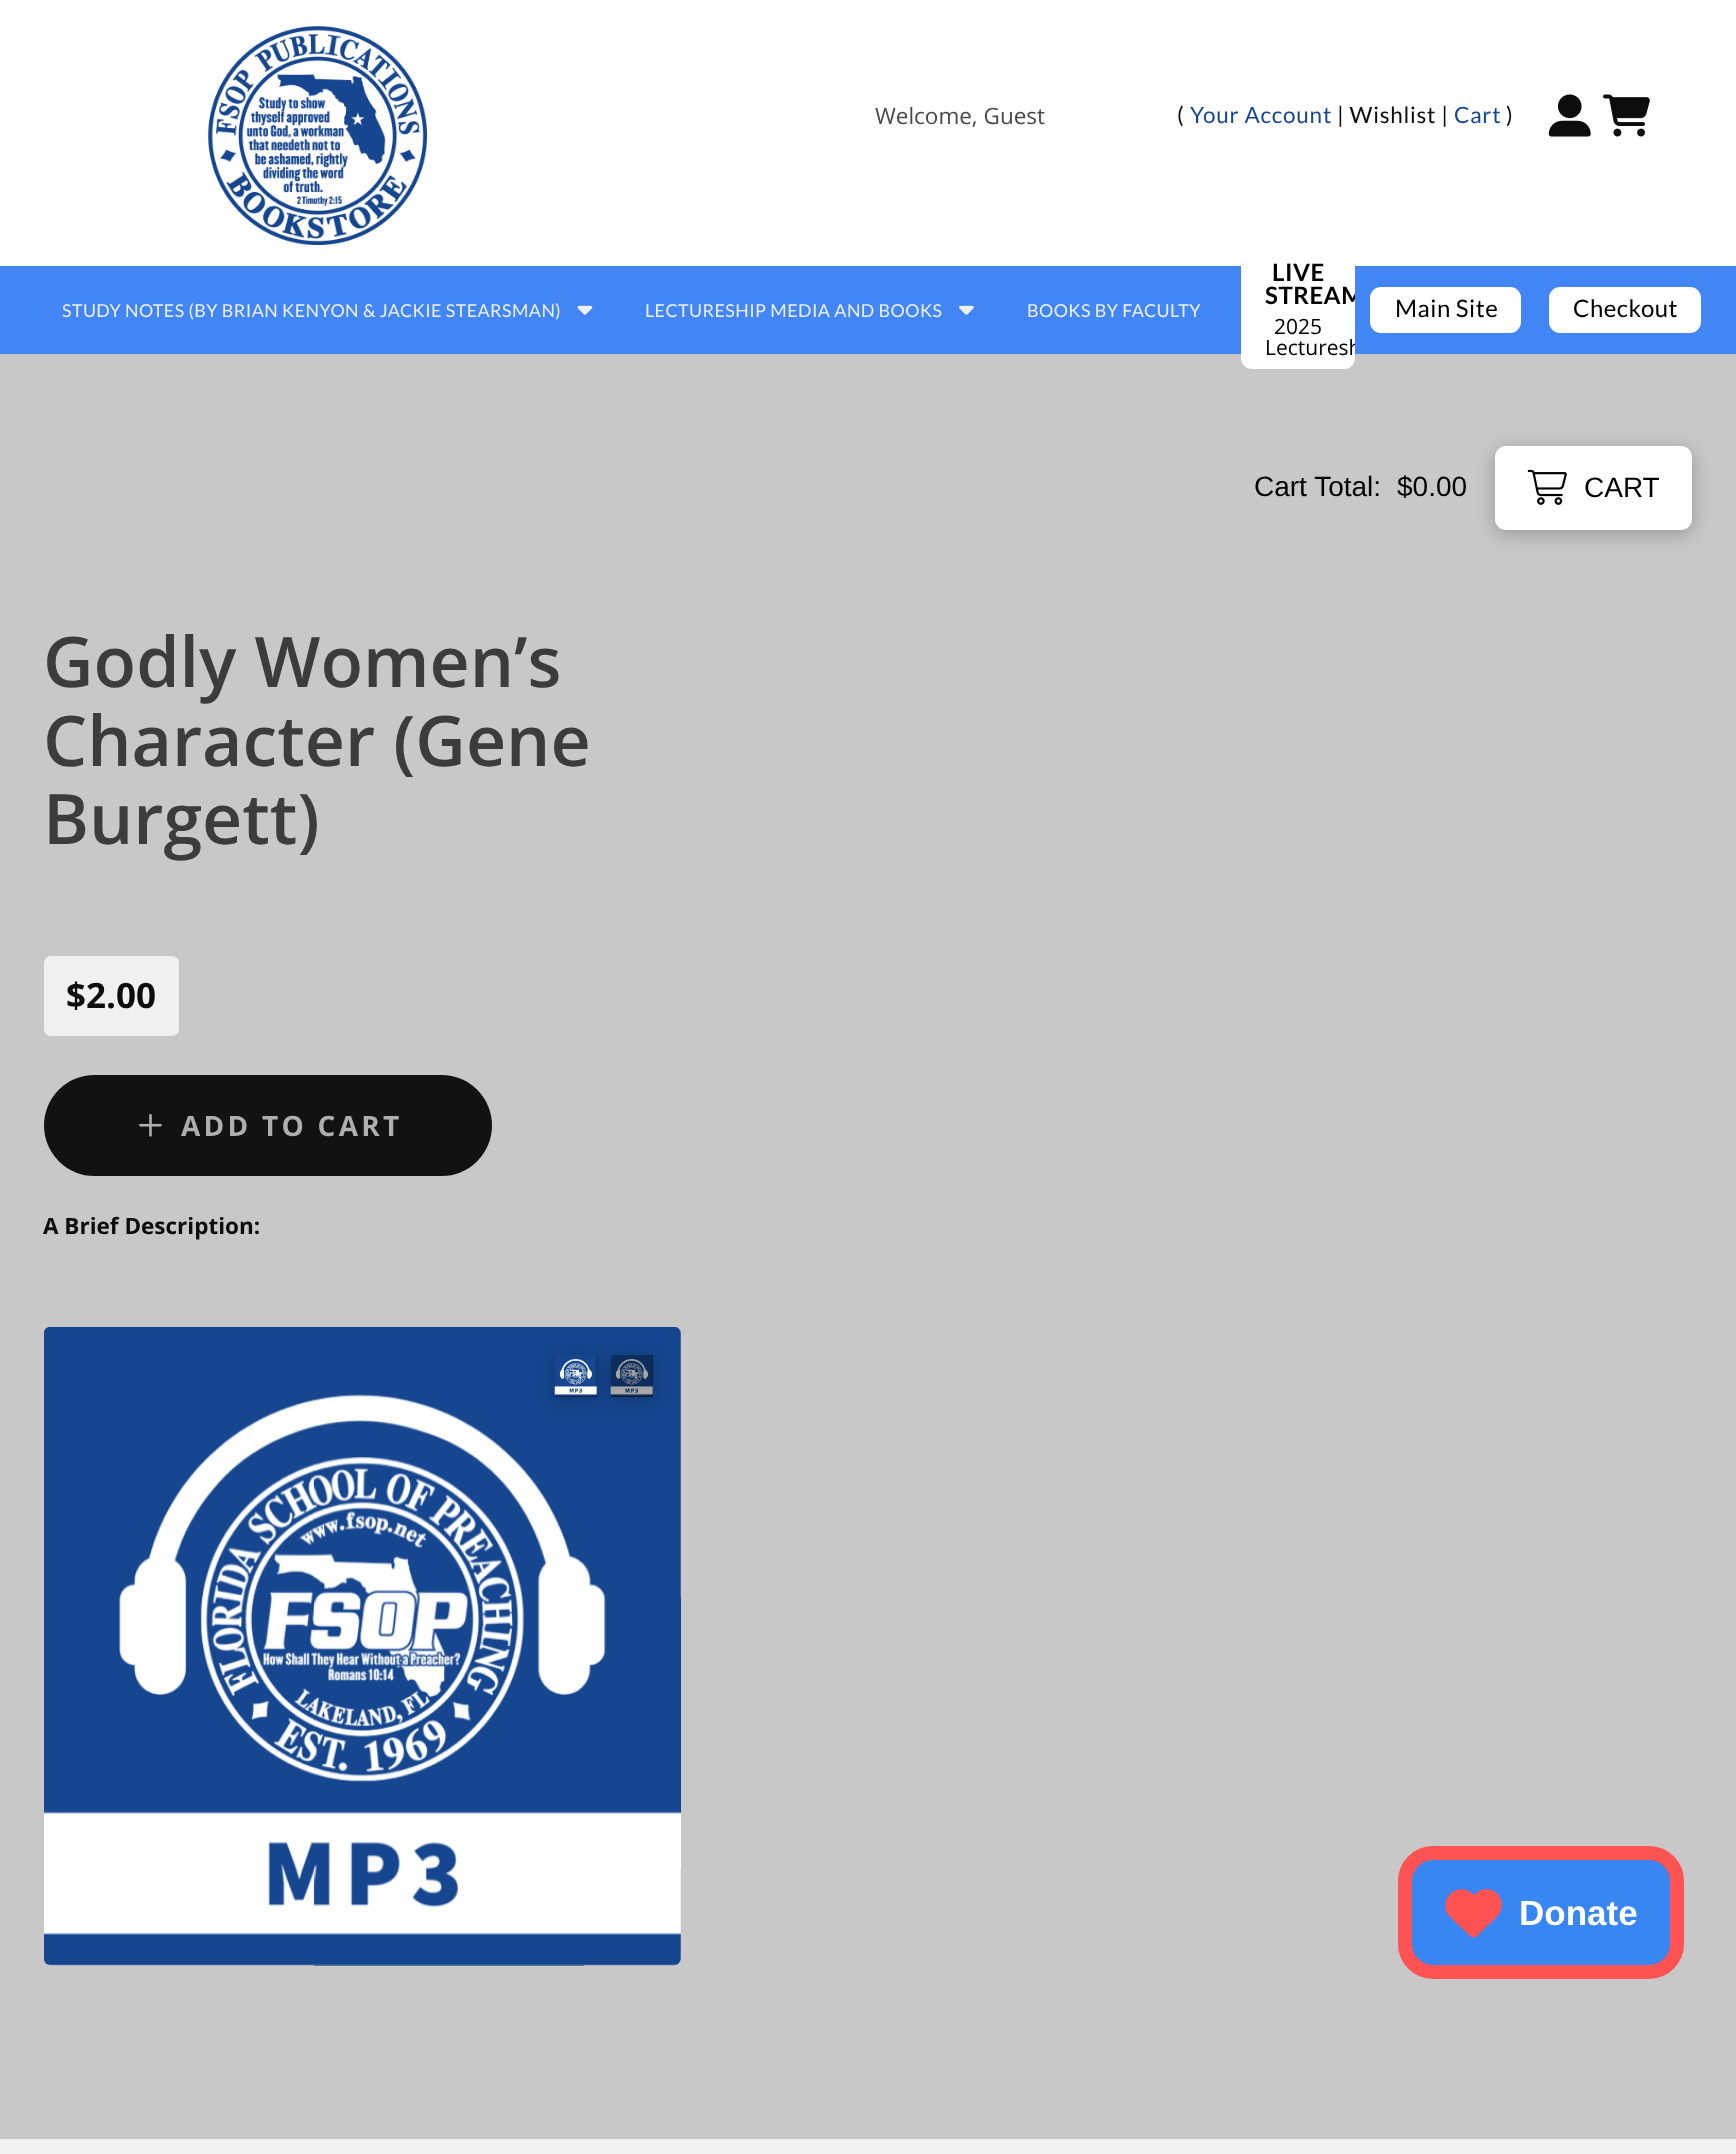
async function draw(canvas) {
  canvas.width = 1736
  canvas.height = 2154
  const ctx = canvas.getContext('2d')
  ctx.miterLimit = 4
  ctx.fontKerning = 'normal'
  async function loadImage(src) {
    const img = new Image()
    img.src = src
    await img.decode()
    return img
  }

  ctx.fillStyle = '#fff'
  ctx.fillRect(0, 0, 1736, 2154)
  ctx.drawImage(await loadImage('image0.png'), 208, 26, 219, 219)
  ctx.font = '22.5px Open Sans'
  ctx.fillStyle = '#494949'
  ctx.fillText('Welcome, Guest', 875, 124)
  ctx.letterSpacing = '0.75px'
  ctx.font = '22.5px Lato'
  ctx.fillStyle = '#0d0d0d'
  ctx.fillText('(', 1177, 123)
  ctx.fillStyle = '#15468f'
  ctx.fillText('Your Account', 1190, 123)
  ctx.fillStyle = '#0d0d0d'
  ctx.fillText('| Wishlist |', 1337, 123)
  ctx.fillStyle = '#15468f'
  ctx.fillText('Cart', 1454, 123)
  ctx.fillStyle = '#0d0d0d'
  ctx.fillText(')', 1506, 123)
  ctx.drawImage(await loadImage('image1.png'), 1548, 94, 43, 43)
  ctx.drawImage(await loadImage('image2.png'), 1603, 94, 47, 43)
  ctx.fillStyle = '#4285f4'
  ctx.fillRect(0, 266, 1736, 88)
  ctx.letterSpacing = '0.45px'
  ctx.font = '17.85px Lato'
  ctx.fillStyle = '#eff0f4'
  ctx.fillText('STUDY NOTES (BY BRIAN KENYON & JACKIE STEARSMAN)', 62, 317)
  ctx.drawImage(await loadImage('image3.png'), 577, 305, 16, 10)
  ctx.fillText('LECTURESHIP MEDIA AND BOOKS', 645, 317)
  ctx.drawImage(await loadImage('image4.png'), 959, 305, 15, 10)
  ctx.fillText('BOOKS BY FACULTY', 1027, 317)
  ctx.fillStyle = '#c8c8c8'
  ctx.fillRect(0, 354, 1736, 1785)
  ctx.fillStyle = '#fff'
  ctx.beginPath()
  ctx.roundRect(1241, 250, 114, 119, 11)
  ctx.fill()
  ctx.letterSpacing = '0.5px'
  ctx.font = 'bold 24px Lato'
  ctx.fillStyle = '#000'
  ctx.fillText('LIVE', 1272, 281)
  ctx.save()
  ctx.beginPath()
  ctx.roundRect(1241, 250, 114, 119, 11)
  ctx.clip()
  ctx.fillText('STREAM', 1265, 304)
  ctx.restore()
  ctx.letterSpacing = '0px'
  ctx.font = '21px Open Sans'
  ctx.fillText('2025', 1274, 334)
  ctx.save()
  ctx.beginPath()
  ctx.roundRect(1241, 250, 114, 119, 11)
  ctx.clip()
  ctx.fillText('Lecturesh', 1265, 355)
  ctx.restore()
  ctx.fillStyle = '#fff'
  ctx.beginPath()
  ctx.roundRect(1370, 287, 151, 46, 11)
  ctx.fill()
  ctx.letterSpacing = '0.5px'
  ctx.font = '24px Lato'
  ctx.fillStyle = '#000'
  ctx.fillText('Main Site', 1395, 317)
  ctx.fillStyle = '#fff'
  ctx.beginPath()
  ctx.roundRect(1549, 287, 152, 46, 11)
  ctx.fill()
  ctx.fillStyle = '#000'
  ctx.fillText('Checkout', 1573, 317)
  ctx.letterSpacing = '0px'
  ctx.font = '28px Liberation Sans'
  ctx.fillText('Cart Total:', 1254, 496)
  ctx.fillText('$0.00', 1397, 496)
  ctx.fillStyle = '#00000040'
  ctx.filter = 'blur(9px)'
  ctx.beginPath()
  ctx.roundRect(1495, 450, 197, 84, 11)
  ctx.fill()
  ctx.filter = 'none'
  ctx.fillStyle = '#fff'
  ctx.beginPath()
  ctx.roundRect(1495, 446, 197, 84, 11)
  ctx.fill()
  ctx.drawImage(await loadImage('image5.png'), 1527, 469, 40, 36)
  ctx.fillStyle = '#000'
  ctx.fillText('CART', 1584, 497)
  ctx.font = '600 69.75px Open Sans'
  ctx.fillStyle = '#3c3c3c'
  ctx.fillText('Godly Women’s', 43, 687)
  ctx.fillText('Character (Gene', 43, 766)
  ctx.fillText('Burgett)', 43, 844)
  ctx.fillStyle = '#f0f0f0'
  ctx.beginPath()
  ctx.roundRect(44, 956, 135, 80, 7)
  ctx.fill()
  ctx.font = 'bold 35px Open Sans'
  ctx.fillStyle = '#0d0d0d'
  ctx.fillText('$2.00', 66, 1008)
  ctx.fillStyle = '#121212'
  ctx.beginPath()
  ctx.roundRect(44, 1075, 448, 101, 50.5)
  ctx.fill()
  ctx.drawImage(await loadImage('image6.png'), 139, 1113, 23, 24)
  ctx.letterSpacing = '3.25px'
  ctx.font = 'bold 28px Open Sans'
  ctx.fillStyle = '#aeaeae'
  ctx.fillText('ADD TO CART', 181, 1136)
  ctx.letterSpacing = '0px'
  ctx.font = 'bold 22.5px Open Sans'
  ctx.fillStyle = '#0d0d0d'
  ctx.fillText('A Brief Description:', 43, 1234)
  ctx.drawImage(await loadImage('image7.png'), 44, 1327, 637, 639)
  ctx.fillStyle = '#00000038'
  ctx.filter = 'blur(9px)'
  ctx.beginPath()
  ctx.rect(555, 1358, 42, 42)
  ctx.fill()
  ctx.filter = 'none'
  ctx.fillStyle = '#000'
  ctx.fillRect(555, 1355, 42, 42)
  ctx.drawImage(await loadImage('image8.png'), 554, 1355, 43, 42)
  ctx.fillStyle = '#00000038'
  ctx.filter = 'blur(9px)'
  ctx.beginPath()
  ctx.rect(611, 1358, 42, 42)
  ctx.fill()
  ctx.filter = 'none'
  ctx.fillStyle = '#000'
  ctx.fillRect(611, 1355, 42, 42)
  ctx.drawImage(await loadImage('image9.png'), 610, 1355, 43, 42)
  ctx.fillStyle = '#f2f2f2'
  ctx.fillRect(0, 2139, 1736, 15)
  ctx.fillStyle = '#3786f2'
  ctx.beginPath()
  ctx.roundRect(1405, 1853, 272, 119, 28)
  ctx.fill()
  ctx.strokeStyle = '#ff5353'
  ctx.lineWidth = 14
  ctx.stroke()
  ctx.fillStyle = '#ff5252'
  ctx.beginPath()
  ctx.moveTo(1451, 1918)
  ctx.lineTo(1470, 1936)
  ctx.lineTo(1451, 1918)
  ctx.lineTo(1467, 1933)
  ctx.bezierCurveTo(1473, 1939, 1474, 1939, 1480, 1933)
  ctx.lineTo(1486, 1927)
  ctx.bezierCurveTo(1491, 1922, 1497, 1918, 1500, 1912)
  ctx.bezierCurveTo(1508, 1895, 1487, 1881, 1474, 1895)
  ctx.bezierCurveTo(1456, 1878, 1435, 1903, 1451, 1918)
  ctx.closePath()
  ctx.fill()
  ctx.font = 'bold 35px Liberation Sans'
  ctx.fillStyle = '#fff'
  ctx.fillText('Donate', 1519, 1925)
}

draw(document.querySelector('canvas'))
